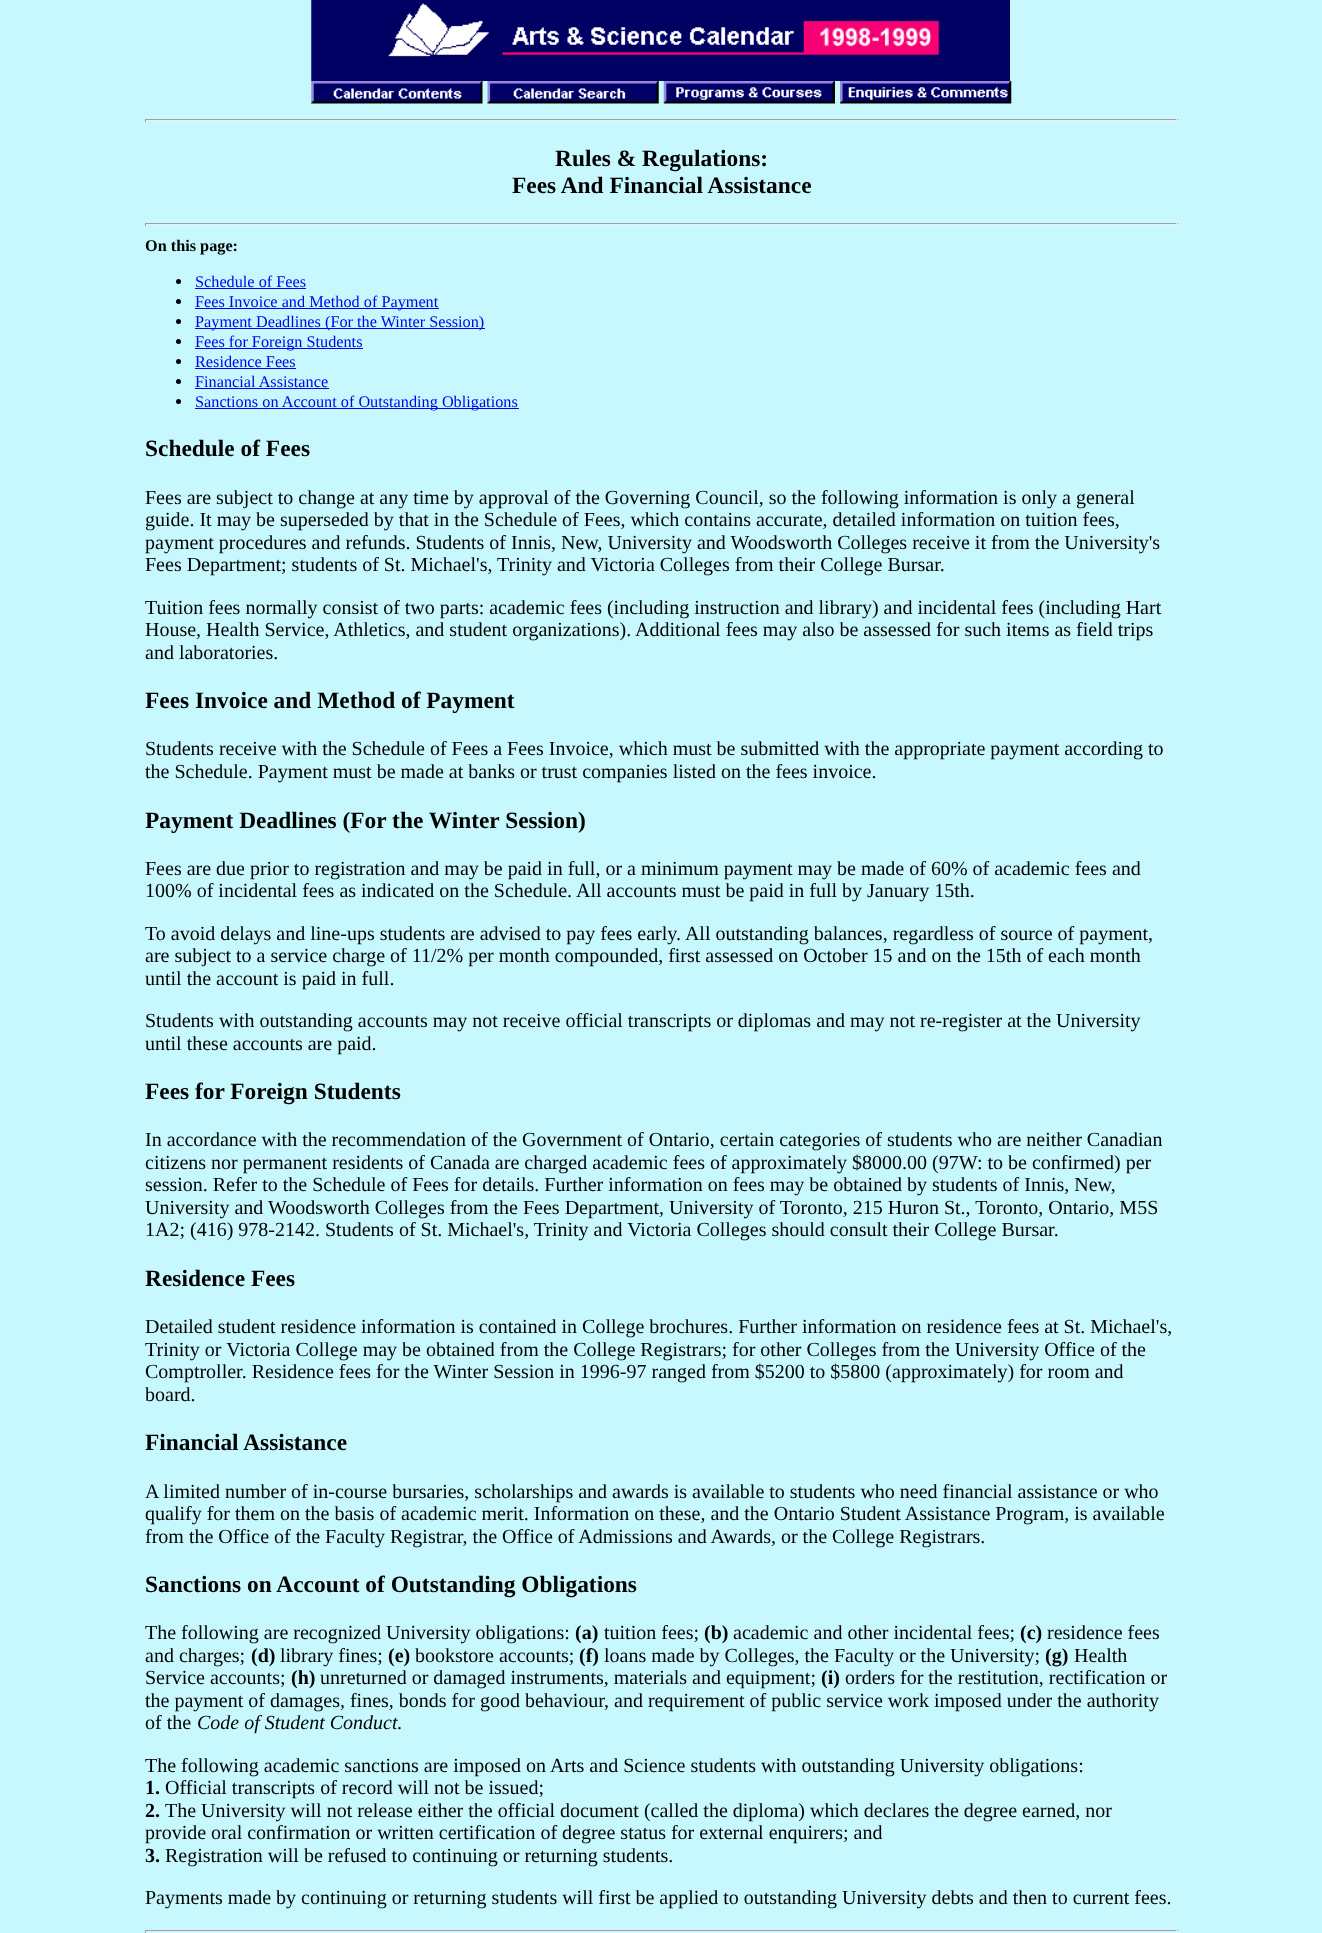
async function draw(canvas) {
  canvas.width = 1322
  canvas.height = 1933
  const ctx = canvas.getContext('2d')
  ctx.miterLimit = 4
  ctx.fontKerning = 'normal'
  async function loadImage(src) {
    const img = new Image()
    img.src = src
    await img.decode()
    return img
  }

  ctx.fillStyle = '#c7f8fe'
  ctx.fillRect(0, 0, 1322, 1933)
  ctx.drawImage(await loadImage('image0.png'), 311, 0, 699, 81)
  ctx.drawImage(await loadImage('image1.png'), 311, 81, 172, 23)
  ctx.drawImage(await loadImage('image2.png'), 487, 81, 172, 23)
  ctx.drawImage(await loadImage('image3.png'), 663, 81, 172, 23)
  ctx.drawImage(await loadImage('image4.png'), 840, 81, 172, 23)
  ctx.fillStyle = '#9f9f9f'
  ctx.fillRect(145, 119, 1033, 1)
  ctx.fillStyle = '#eee'
  ctx.fillRect(1176, 119, 1, 3)
  ctx.fillRect(145, 120, 1033, 1)
  ctx.fillStyle = '#9f9f9f'
  ctx.fillRect(145, 119, 1, 3)
  ctx.font = 'bold 23.4px Liberation Serif'
  ctx.fillStyle = '#000'
  ctx.fillText('Rules & Regulations:', 555, 166)
  ctx.fillText('Fees And Financial Assistance', 512, 193)
  ctx.fillStyle = '#9f9f9f'
  ctx.fillRect(145, 223, 1033, 1)
  ctx.fillStyle = '#eee'
  ctx.fillRect(1176, 223, 1, 3)
  ctx.fillRect(145, 224, 1033, 1)
  ctx.fillStyle = '#9f9f9f'
  ctx.fillRect(145, 223, 1, 3)
  ctx.font = 'bold 16.25px Liberation Serif'
  ctx.fillStyle = '#000'
  ctx.fillText('On this page:', 145, 251)
  ctx.beginPath()
  ctx.arc(178.5, 281.5, 2.5, 0, 2 * Math.PI)
  ctx.fill()
  ctx.font = '16.25px Liberation Serif'
  ctx.fillStyle = '#00e'
  ctx.fillText('Schedule of Fees', 195, 287)
  ctx.fillRect(195, 288, 111, 1)
  ctx.fillStyle = '#000'
  ctx.beginPath()
  ctx.arc(178.5, 301.5, 2.5, 0, 2 * Math.PI)
  ctx.fill()
  ctx.fillStyle = '#00e'
  ctx.fillRect(195, 308, 244, 1)
  ctx.fillText('Fees Invoice and Method of Payment', 195, 307)
  ctx.fillStyle = '#000'
  ctx.beginPath()
  ctx.arc(178.5, 321.5, 2.5, 0, 2 * Math.PI)
  ctx.fill()
  ctx.fillStyle = '#00e'
  ctx.fillRect(195, 328, 290, 1)
  ctx.fillText('Payment Deadlines (For the Winter Session)', 195, 327)
  ctx.fillStyle = '#000'
  ctx.beginPath()
  ctx.arc(178.5, 341.5, 2.5, 0, 2 * Math.PI)
  ctx.fill()
  ctx.fillStyle = '#00e'
  ctx.fillRect(195, 348, 168, 1)
  ctx.fillText('Fees for Foreign Students', 195, 347)
  ctx.fillStyle = '#000'
  ctx.beginPath()
  ctx.arc(178.5, 361.5, 2.5, 0, 2 * Math.PI)
  ctx.fill()
  ctx.fillStyle = '#00e'
  ctx.fillText('Residence Fees', 195, 367)
  ctx.fillRect(195, 368, 101, 1)
  ctx.fillStyle = '#000'
  ctx.beginPath()
  ctx.arc(178.5, 381.5, 2.5, 0, 2 * Math.PI)
  ctx.fill()
  ctx.fillStyle = '#00e'
  ctx.fillText('Financial Assistance', 195, 387)
  ctx.fillRect(195, 388, 134, 1)
  ctx.fillStyle = '#000'
  ctx.beginPath()
  ctx.arc(178.5, 401.5, 2.5, 0, 2 * Math.PI)
  ctx.fill()
  ctx.fillStyle = '#00e'
  ctx.fillRect(195, 408, 324, 1)
  ctx.fillText('Sanctions on Account of Outstanding Obligations', 195, 407)
  ctx.font = 'bold 23.4px Liberation Serif'
  ctx.fillStyle = '#000'
  ctx.fillText('Schedule of Fees', 145, 456)
  ctx.font = '20px Liberation Serif'
  ctx.fillText('Fees are subject to change at any time by approval of the Governing Council, so the following information is only a general', 145, 504)
  ctx.fillText('guide. It may be superseded by that in the Schedule of Fees, which contains accurate, detailed information on tuition fees,', 145, 526)
  ctx.fillText('payment procedures and refunds. Students of Innis, New, University and Woodsworth Colleges receive it from the University\'s', 145, 549)
  ctx.fillText('Fees Department; students of St. Michael\'s, Trinity and Victoria Colleges from their College Bursar.', 145, 571)
  ctx.fillText('Tuition fees normally consist of two parts: academic fees (including instruction and library) and incidental fees (including Hart', 145, 614)
  ctx.fillText('House, Health Service, Athletics, and student organizations). Additional fees may also be assessed for such items as field trips', 145, 636)
  ctx.fillText('and laboratories.', 145, 659)
  ctx.font = 'bold 23.4px Liberation Serif'
  ctx.fillText('Fees Invoice and Method of Payment', 145, 708)
  ctx.font = '20px Liberation Serif'
  ctx.fillText('Students receive with the Schedule of Fees a Fees Invoice, which must be submitted with the appropriate payment according to', 145, 755)
  ctx.fillText('the Schedule. Payment must be made at banks or trust companies listed on the fees invoice.', 145, 778)
  ctx.font = 'bold 23.4px Liberation Serif'
  ctx.fillText('Payment Deadlines (For the Winter Session)', 145, 828)
  ctx.font = '20px Liberation Serif'
  ctx.fillText('Fees are due prior to registration and may be paid in full, or a minimum payment may be made of 60% of academic fees and', 145, 875)
  ctx.fillText('100% of incidental fees as indicated on the Schedule. All accounts must be paid in full by January 15th.', 145, 897)
  ctx.fillText('To avoid delays and line-ups students are advised to pay fees early. All outstanding balances, regardless of source of payment,', 145, 940)
  ctx.fillText('are subject to a service charge of 11/2% per month compounded, first assessed on October 15 and on the 15th of each month', 145, 962)
  ctx.fillText('until the account is paid in full.', 145, 985)
  ctx.fillText('Students with outstanding accounts may not receive official transcripts or diplomas and may not re-register at the University', 145, 1027)
  ctx.fillText('until these accounts are paid.', 145, 1050)
  ctx.font = 'bold 23.4px Liberation Serif'
  ctx.fillText('Fees for Foreign Students', 145, 1099)
  ctx.font = '20px Liberation Serif'
  ctx.fillText('In accordance with the recommendation of the Government of Ontario, certain categories of students who are neither Canadian', 145, 1146)
  ctx.fillText('citizens nor permanent residents of Canada are charged academic fees of approximately $8000.00 (97W: to be confirmed) per', 145, 1169)
  ctx.fillText('session. Refer to the Schedule of Fees for details. Further information on fees may be obtained by students of Innis, New,', 145, 1191)
  ctx.fillText('University and Woodsworth Colleges from the Fees Department, University of Toronto, 215 Huron St., Toronto, Ontario, M5S', 145, 1214)
  ctx.fillText('1A2; (416) 978-2142. Students of St. Michael\'s, Trinity and Victoria Colleges should consult their College Bursar.', 145, 1236)
  ctx.font = 'bold 23.4px Liberation Serif'
  ctx.fillText('Residence Fees', 145, 1286)
  ctx.font = '20px Liberation Serif'
  ctx.fillText('Detailed student residence information is contained in College brochures. Further information on residence fees at St. Michael\'s,', 145, 1333)
  ctx.fillText('Trinity or Victoria College may be obtained from the College Registrars; for other Colleges from the University Office of the', 145, 1356)
  ctx.fillText('Comptroller. Residence fees for the Winter Session in 1996-97 ranged from $5200 to $5800 (approximately) for room and', 145, 1378)
  ctx.fillText('board.', 145, 1401)
  ctx.font = 'bold 23.4px Liberation Serif'
  ctx.fillText('Financial Assistance', 145, 1450)
  ctx.font = '20px Liberation Serif'
  ctx.fillText('A limited number of in-course bursaries, scholarships and awards is available to students who need financial assistance or who', 145, 1498)
  ctx.fillText('qualify for them on the basis of academic merit. Information on these, and the Ontario Student Assistance Program, is available', 145, 1520)
  ctx.fillText('from the Office of the Faculty Registrar, the Office of Admissions and Awards, or the College Registrars.', 145, 1543)
  ctx.font = 'bold 23.4px Liberation Serif'
  ctx.fillText('Sanctions on Account of Outstanding Obligations', 145, 1592)
  ctx.font = '20px Liberation Serif'
  ctx.fillText('The following are recognized University obligations:', 145, 1639)
  ctx.font = 'bold 20px Liberation Serif'
  ctx.fillText('(a)', 575, 1639)
  ctx.font = '20px Liberation Serif'
  ctx.fillText('tuition fees;', 604, 1639)
  ctx.font = 'bold 20px Liberation Serif'
  ctx.fillText('(b)', 704, 1639)
  ctx.font = '20px Liberation Serif'
  ctx.fillText('academic and other incidental fees;', 733, 1639)
  ctx.font = 'bold 20px Liberation Serif'
  ctx.fillText('(c)', 1020, 1639)
  ctx.font = '20px Liberation Serif'
  ctx.fillText('residence fees', 1047, 1639)
  ctx.fillText('and charges;', 145, 1662)
  ctx.font = 'bold 20px Liberation Serif'
  ctx.fillText('(d)', 251, 1662)
  ctx.font = '20px Liberation Serif'
  ctx.fillText('library fines;', 280, 1662)
  ctx.font = 'bold 20px Liberation Serif'
  ctx.fillText('(e)', 388, 1662)
  ctx.font = '20px Liberation Serif'
  ctx.fillText('bookstore accounts;', 415, 1662)
  ctx.font = 'bold 20px Liberation Serif'
  ctx.fillText('(f)', 579, 1662)
  ctx.font = '20px Liberation Serif'
  ctx.fillText('loans made by Colleges, the Faculty or the University;', 604, 1662)
  ctx.font = 'bold 20px Liberation Serif'
  ctx.fillText('(g)', 1045, 1662)
  ctx.font = '20px Liberation Serif'
  ctx.fillText('Health', 1074, 1662)
  ctx.fillText('Service accounts;', 145, 1684)
  ctx.font = 'bold 20px Liberation Serif'
  ctx.fillText('(h)', 291, 1684)
  ctx.font = '20px Liberation Serif'
  ctx.fillText('unreturned or damaged instruments, materials and equipment;', 320, 1684)
  ctx.font = 'bold 20px Liberation Serif'
  ctx.fillText('(i)', 821, 1684)
  ctx.font = '20px Liberation Serif'
  ctx.fillText('orders for the restitution, rectification or', 845, 1684)
  ctx.fillText('the payment of damages, fines, bonds for good behaviour, and requirement of public service work imposed under the authority', 145, 1707)
  ctx.fillText('of the', 145, 1729)
  ctx.font = 'italic 20px Liberation Serif'
  ctx.fillText('Code of Student Conduct', 197, 1729)
  ctx.font = '20px Liberation Serif'
  ctx.fillText('.', 397, 1729)
  ctx.fillText('The following academic sanctions are imposed on Arts and Science students with outstanding University obligations:', 145, 1772)
  ctx.font = 'bold 20px Liberation Serif'
  ctx.fillText('1.', 145, 1794)
  ctx.font = '20px Liberation Serif'
  ctx.fillText('Official transcripts of record will not be issued;', 165, 1794)
  ctx.font = 'bold 20px Liberation Serif'
  ctx.fillText('2.', 145, 1817)
  ctx.font = '20px Liberation Serif'
  ctx.fillText('The University will not release either the official document (called the diploma) which declares the degree earned, nor', 165, 1817)
  ctx.fillText('provide oral confirmation or written certification of degree status for external enquirers; and', 145, 1839)
  ctx.font = 'bold 20px Liberation Serif'
  ctx.fillText('3.', 145, 1862)
  ctx.font = '20px Liberation Serif'
  ctx.fillText('Registration will be refused to continuing or returning students.', 165, 1862)
  ctx.fillText('Payments made by continuing or returning students will first be applied to outstanding University debts and then to current fees.', 145, 1904)
  ctx.fillStyle = '#9f9f9f'
  ctx.fillRect(145, 1930, 1033, 1)
  ctx.fillStyle = '#eee'
  ctx.fillRect(1176, 1930, 1, 3)
  ctx.fillRect(145, 1931, 1033, 1)
  ctx.fillStyle = '#9f9f9f'
  ctx.fillRect(145, 1930, 1, 3)
}

draw(document.querySelector('canvas'))
